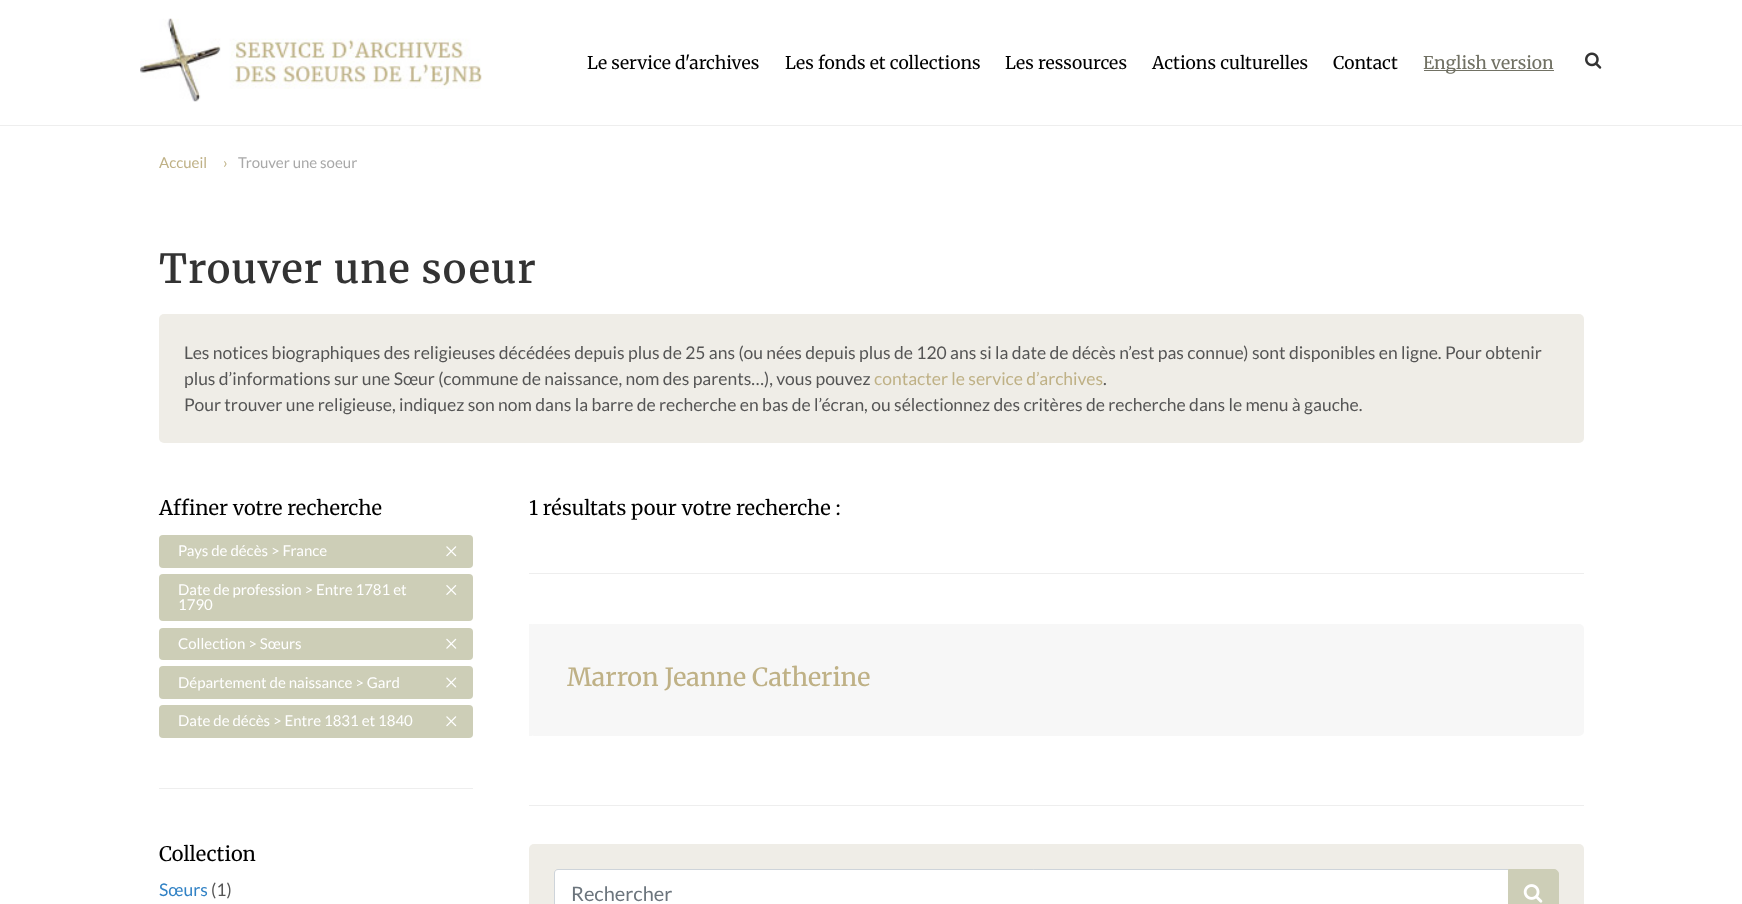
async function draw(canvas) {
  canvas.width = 1742
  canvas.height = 904
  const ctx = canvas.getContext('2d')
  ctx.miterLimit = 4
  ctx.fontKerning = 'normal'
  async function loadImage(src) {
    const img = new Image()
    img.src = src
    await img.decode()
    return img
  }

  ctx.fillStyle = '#fff'
  ctx.fillRect(0, 0, 1742, 904)
  ctx.fillStyle = '#eee'
  ctx.fillRect(0, 125, 1742, 1)
  ctx.drawImage(await loadImage('image0.png'), 140, 18, 342, 84)
  ctx.font = '17.5px Merriweather'
  ctx.fillStyle = '#000'
  ctx.fillText('Le service d\'archives', 587, 69)
  ctx.fillText('Les fonds et collections', 785, 69)
  ctx.fillText('Les ressources', 1005, 69)
  ctx.fillText('Actions culturelles', 1152, 69)
  ctx.fillText('Contact', 1333, 69)
  ctx.fillStyle = '#717164'
  ctx.fillRect(1424, 70, 130, 1)
  ctx.fillText('English version', 1423, 69)
  ctx.drawImage(await loadImage('image1.png'), 1585, 52, 17, 17)
  ctx.font = '15px Lato'
  ctx.fillStyle = '#bfb186'
  ctx.fillText('Accueil', 159, 168)
  ctx.fillText('›', 223, 168)
  ctx.fillStyle = '#a9a9a9'
  ctx.fillText('Trouver une soeur', 238, 168)
  ctx.letterSpacing = '1.25px'
  ctx.font = '600 40px Merriweather'
  ctx.fillStyle = '#333'
  ctx.fillText('Trouver une soeur', 159, 283)
  ctx.fillStyle = '#efede7'
  ctx.beginPath()
  ctx.roundRect(159, 314, 1425, 129, 5)
  ctx.fill()
  ctx.letterSpacing = '0px'
  ctx.font = '17.5px Lato'
  ctx.fillStyle = '#555'
  ctx.fillText('Les notices biographiques des religieuses décédées depuis plus de 25 ans (ou nées depuis plus de 120 ans si la date de décès n’est pas connue) sont disponibles en ligne. Pour obtenir', 184, 359)
  ctx.fillText('plus d’informations sur une Sœur (commune de naissance, nom des parents…), vous pouvez', 184, 385)
  ctx.fillStyle = '#bfb186'
  ctx.fillText('contacter le service d’archives', 874, 385)
  ctx.fillStyle = '#555'
  ctx.fillText('.', 1103, 385)
  ctx.fillText('Pour trouver une religieuse, indiquez son nom dans la barre de recherche en bas de l’écran, ou sélectionnez des critères de recherche dans le menu à gauche.', 184, 411)
  ctx.font = '20px Merriweather'
  ctx.fillStyle = '#000'
  ctx.fillText('Affiner votre recherche', 159, 515)
  ctx.fillStyle = '#cdceb7'
  ctx.beginPath()
  ctx.roundRect(159, 535, 314, 33, 4)
  ctx.fill()
  ctx.font = '15px Lato'
  ctx.fillStyle = '#fff'
  ctx.fillText('Pays de décès > France', 178, 556)
  ctx.drawImage(await loadImage('image2.png'), 446, 546, 11, 11)
  ctx.fillStyle = '#cdceb7'
  ctx.beginPath()
  ctx.roundRect(159, 574, 314, 47, 4)
  ctx.fill()
  ctx.fillStyle = '#fff'
  ctx.fillText('Date de profession > Entre 1781 et', 178, 595)
  ctx.fillText('1790', 178, 610)
  ctx.drawImage(await loadImage('image3.png'), 446, 585, 11, 10)
  ctx.fillStyle = '#cdceb7'
  ctx.beginPath()
  ctx.roundRect(159, 628, 314, 32, 4)
  ctx.fill()
  ctx.fillStyle = '#fff'
  ctx.fillText('Collection > Sœurs', 178, 649)
  ctx.drawImage(await loadImage('image4.png'), 446, 638, 11, 11)
  ctx.fillStyle = '#cdceb7'
  ctx.beginPath()
  ctx.roundRect(159, 666, 314, 33, 4)
  ctx.fill()
  ctx.fillStyle = '#fff'
  ctx.fillText('Département de naissance > Gard', 178, 688)
  ctx.drawImage(await loadImage('image5.png'), 446, 677, 11, 11)
  ctx.fillStyle = '#cdceb7'
  ctx.beginPath()
  ctx.roundRect(159, 705, 314, 33, 4)
  ctx.fill()
  ctx.fillStyle = '#fff'
  ctx.fillText('Date de décès > Entre 1831 et 1840', 178, 726)
  ctx.drawImage(await loadImage('image2.png'), 446, 716, 11, 11)
  ctx.fillStyle = '#eee'
  ctx.fillRect(159, 788, 314, 1)
  ctx.font = '20px Merriweather'
  ctx.fillStyle = '#000'
  ctx.fillText('Collection', 159, 861)
  ctx.font = '17.5px Lato'
  ctx.fillStyle = '#3182c5'
  ctx.fillText('Sœurs', 159, 896)
  ctx.fillStyle = '#555'
  ctx.fillText('(1)', 211, 896)
  ctx.font = '20px Merriweather'
  ctx.fillStyle = '#000'
  ctx.fillText('1 résultats pour votre recherche :', 529, 515)
  ctx.fillStyle = '#eee'
  ctx.fillRect(529, 573, 1055, 1)
  ctx.fillStyle = '#f7f7f7'
  ctx.beginPath()
  ctx.roundRect(529, 624, 1055, 112, 5)
  ctx.fill()
  ctx.fillRect(529, 624, 3, 112)
  ctx.font = '500 25px Merriweather'
  ctx.fillStyle = '#bfb186'
  ctx.fillText('Marron Jeanne Catherine', 567, 686)
  ctx.fillStyle = '#eee'
  ctx.fillRect(529, 805, 1055, 1)
  ctx.fillStyle = '#efede7'
  ctx.beginPath()
  ctx.roundRect(529, 844, 1055, 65, 5)
  ctx.fill()
  ctx.fillStyle = '#fff'
  ctx.beginPath()
  ctx.moveTo(557.5, 870)
  ctx.lineTo(1508, 870)
  ctx.lineTo(1508, 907)
  ctx.lineTo(557.5, 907)
  ctx.bezierCurveTo(556, 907, 555, 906, 555, 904.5)
  ctx.lineTo(555, 872.5)
  ctx.bezierCurveTo(555, 871, 556, 870, 557.5, 870)
  ctx.closePath()
  ctx.fill()
  ctx.beginPath()
  ctx.moveTo(558, 869.5)
  ctx.lineTo(1508.5, 869.5)
  ctx.lineTo(1508.5, 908.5)
  ctx.lineTo(558, 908.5)
  ctx.bezierCurveTo(556, 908.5, 554.5, 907, 554.5, 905)
  ctx.lineTo(554.5, 873)
  ctx.bezierCurveTo(554.5, 871, 556, 869.5, 558, 869.5)
  ctx.closePath()
  ctx.strokeStyle = '#ced4da'
  ctx.stroke()
  ctx.font = '20px Lato'
  ctx.fillStyle = '#6c757d'
  ctx.fillText('Rechercher', 571, 901)
  ctx.fillStyle = '#cdceb7'
  ctx.beginPath()
  ctx.moveTo(1508.5, 869.5)
  ctx.lineTo(1554, 869.5)
  ctx.bezierCurveTo(1556.5, 869.5, 1558.5, 871.5, 1558.5, 874)
  ctx.lineTo(1558.5, 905)
  ctx.bezierCurveTo(1558.5, 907.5, 1556.5, 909.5, 1554, 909.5)
  ctx.lineTo(1508.5, 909.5)
  ctx.closePath()
  ctx.fill()
  ctx.strokeStyle = '#cdceb7'
  ctx.stroke()
  ctx.drawImage(await loadImage('image6.png'), 1523, 884, 20, 19)
}

draw(document.querySelector('canvas'))
